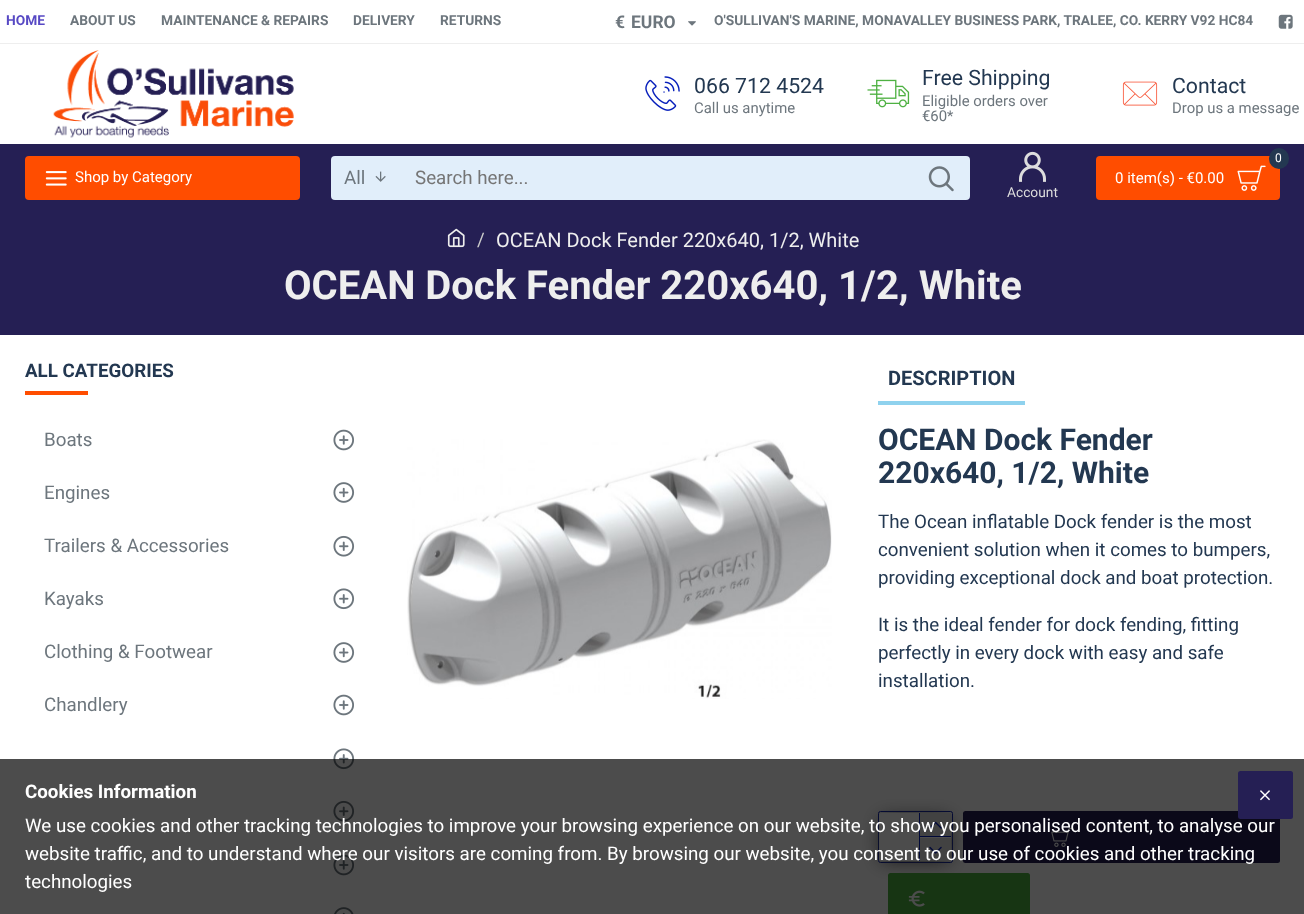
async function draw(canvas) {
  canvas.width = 1304
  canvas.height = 914
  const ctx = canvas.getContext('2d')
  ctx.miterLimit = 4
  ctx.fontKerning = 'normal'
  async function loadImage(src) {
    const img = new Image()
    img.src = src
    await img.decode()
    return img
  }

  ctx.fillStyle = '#fff'
  ctx.fillRect(0, 0, 1304, 914)
  ctx.font = 'bold 13.75px Roboto'
  ctx.fillStyle = '#5749c4'
  ctx.fillText('HOME', 6, 25)
  ctx.fillStyle = '#6d767d'
  ctx.fillText('ABOUT US', 70, 25)
  ctx.fillText('MAINTENANCE & REPAIRS', 161, 25)
  ctx.fillText('DELIVERY', 353, 25)
  ctx.fillText('RETURNS', 440, 25)
  ctx.font = 'bold 17.5px Roboto'
  ctx.fillText('€', 615, 28)
  ctx.fillText('EURO', 631, 28)
  ctx.drawImage(await loadImage('image0.png'), 688, 21, 8, 5)
  ctx.font = 'bold 13.75px Roboto'
  ctx.fillText('O\'SULLIVAN\'S MARINE, MONAVALLEY BUSINESS PARK, TRALEE, CO. KERRY V92 HC84', 714, 25)
  ctx.drawImage(await loadImage('image1.png'), 1278, 14, 15, 15)
  ctx.drawImage(await loadImage('image2.png'), 53, 50, 241, 88)
  ctx.drawImage(await loadImage('image3.png'), 645, 76, 35, 35)
  ctx.font = '21.25px Roboto'
  ctx.fillStyle = '#233851'
  ctx.fillText('066 712 4524', 694, 93)
  ctx.font = '14.9px Roboto'
  ctx.fillStyle = '#6d767d'
  ctx.fillText('Call us anytime', 694, 113)
  ctx.drawImage(await loadImage('image4.png'), 867, 79, 43, 29)
  ctx.font = '21.25px Roboto'
  ctx.fillStyle = '#233851'
  ctx.fillText('Free Shipping', 922, 85)
  ctx.font = '14.9px Roboto'
  ctx.fillStyle = '#6d767d'
  ctx.fillText('Eligible orders over', 922, 106)
  ctx.fillText('€60*', 922, 121)
  ctx.drawImage(await loadImage('image5.png'), 1122, 81, 36, 25)
  ctx.font = '21.25px Roboto'
  ctx.fillStyle = '#233851'
  ctx.fillText('Contact', 1172, 93)
  ctx.font = '14.9px Roboto'
  ctx.fillStyle = '#6d767d'
  ctx.fillText('Drop us a message', 1172, 113)
  ctx.fillStyle = '#251f54'
  ctx.fillRect(0, 144, 1304, 191)
  ctx.fillStyle = '#ff4d00'
  ctx.beginPath()
  ctx.roundRect(25, 156, 275, 44, 4)
  ctx.fill()
  ctx.drawImage(await loadImage('image6.png'), 45, 171, 22, 15)
  ctx.font = '15px Roboto'
  ctx.fillStyle = '#fff'
  ctx.fillText('Shop by Category', 75, 182)
  ctx.fillStyle = '#e1eefa'
  ctx.beginPath()
  ctx.roundRect(331, 156, 69, 44, [4, 0, 0, 4])
  ctx.fill()
  ctx.font = '18.75px Roboto'
  ctx.fillStyle = '#6d767d'
  ctx.fillText('All', 344, 184)
  ctx.drawImage(await loadImage('image7.png'), 375, 171, 11, 11)
  ctx.fillStyle = '#e1eefa'
  ctx.fillRect(400, 156, 514, 44)
  ctx.fillStyle = '#757575'
  ctx.fillText('Search here...', 415, 184)
  ctx.fillStyle = '#e1eefa'
  ctx.beginPath()
  ctx.roundRect(914, 156, 56, 44, [0, 4, 4, 0])
  ctx.fill()
  ctx.drawImage(await loadImage('image8.png'), 928, 166, 26, 26)
  ctx.fillStyle = '#ff4d00'
  ctx.beginPath()
  ctx.roundRect(1096, 156, 184, 44, 4)
  ctx.fill()
  ctx.fillStyle = '#233851'
  ctx.beginPath()
  ctx.roundRect(1269, 148, 20, 21, 10)
  ctx.fill()
  ctx.font = '12px Roboto'
  ctx.fillStyle = '#fff'
  ctx.fillText('0', 1275, 162)
  ctx.font = '15px Roboto'
  ctx.fillText('0 item(s) - €0.00', 1115, 183)
  ctx.drawImage(await loadImage('image9.png'), 1237, 165, 29, 26)
  ctx.drawImage(await loadImage('image10.png'), 1019, 151, 27, 31)
  ctx.font = '13.75px Roboto'
  ctx.fillStyle = '#ddd'
  ctx.fillText('Account', 1007, 197)
  ctx.fillStyle = '#eee'
  ctx.fillRect(0, 43, 1304, 1)
  ctx.drawImage(await loadImage('image11.png'), 447, 228, 18, 20)
  ctx.font = '18.75px Roboto'
  ctx.fillStyle = '#ccc'
  ctx.fillText('/', 477, 246)
  ctx.font = '20px Roboto'
  ctx.fillStyle = '#eee'
  ctx.fillText('OCEAN Dock Fender 220x640, 1/2, White', 496, 247)
  ctx.font = 'bold 40px Roboto'
  ctx.fillText('OCEAN Dock Fender 220x640, 1/2, White', 284, 299)
  ctx.font = 'bold 18.75px Roboto'
  ctx.fillStyle = '#233851'
  ctx.fillText('ALL CATEGORIES', 25, 377)
  ctx.fillStyle = '#ff4d00'
  ctx.fillRect(25, 391, 63, 4)
  ctx.font = '18.75px Roboto'
  ctx.fillStyle = '#6d767d'
  ctx.fillText('Boats', 44, 446)
  ctx.drawImage(await loadImage('image12.png'), 333, 429, 21, 22)
  ctx.fillText('Engines', 44, 499)
  ctx.drawImage(await loadImage('image13.png'), 333, 482, 22, 21)
  ctx.fillText('Trailers & Accessories', 44, 552)
  ctx.drawImage(await loadImage('image14.png'), 333, 535, 22, 22)
  ctx.fillText('Kayaks', 44, 605)
  ctx.drawImage(await loadImage('image15.png'), 333, 588, 22, 22)
  ctx.fillText('Clothing & Footwear', 44, 658)
  ctx.drawImage(await loadImage('image13.png'), 333, 642, 22, 21)
  ctx.fillText('Chandlery', 44, 711)
  ctx.drawImage(await loadImage('image12.png'), 333, 694, 21, 22)
  ctx.drawImage(await loadImage('image15.png'), 333, 748, 22, 22)
  ctx.drawImage(await loadImage('image14.png'), 333, 800, 22, 22)
  ctx.drawImage(await loadImage('image12.png'), 333, 854, 21, 22)
  ctx.drawImage(await loadImage('image16.png'), 334, 907, 20, 7)
  ctx.drawImage(await loadImage('image17.png'), 407, 439, 425, 260)
  ctx.fillStyle = '#8fd2ee'
  ctx.fillRect(878, 401, 147, 4)
  ctx.font = 'bold 20px Roboto'
  ctx.fillStyle = '#233851'
  ctx.fillText('DESCRIPTION', 888, 385)
  ctx.font = 'bold 30px Roboto'
  ctx.fillText('OCEAN Dock Fender', 878, 450)
  ctx.fillText('220x640, 1/2, White', 878, 483)
  ctx.font = '18.75px Roboto'
  ctx.fillText('The Ocean inflatable Dock fender is the most', 878, 528)
  ctx.fillText('convenient solution when it comes to bumpers,', 878, 556)
  ctx.fillText('providing exceptional dock and boat protection.', 878, 584)
  ctx.fillText('It is the ideal fender for dock fending, fitting', 878, 631)
  ctx.fillText('perfectly in every dock with easy and safe', 878, 659)
  ctx.fillText('installation.', 878, 687)
  ctx.beginPath()
  ctx.roundRect(878.5, 811.5, 74, 51, 2)
  ctx.strokeStyle = '#061ebb'
  ctx.stroke()
  ctx.fillStyle = '#555'
  ctx.filter = 'blur(9.5px)'
  ctx.beginPath()
  ctx.rect(881, 818, 68, 43)
  ctx.fill()
  ctx.filter = 'none'
  ctx.fillStyle = '#fff'
  ctx.beginPath()
  ctx.roundRect(879, 813, 72, 48, 2.5)
  ctx.fill()
  ctx.fillStyle = '#061ebb'
  ctx.fillRect(919, 813, 1, 48)
  ctx.fillStyle = '#ddd'
  ctx.fillRect(920, 813, 31, 23)
  ctx.fillStyle = '#061ebb'
  ctx.fillRect(920, 836, 31, 1)
  ctx.drawImage(await loadImage('image18.png'), 929, 821, 13, 8)
  ctx.fillStyle = '#ddd'
  ctx.fillRect(920, 838, 31, 23)
  ctx.drawImage(await loadImage('image19.png'), 929, 846, 13, 8)
  ctx.fillStyle = '#251f54'
  ctx.beginPath()
  ctx.roundRect(963, 811, 317, 52, 2.5)
  ctx.fill()
  ctx.drawImage(await loadImage('image20.png'), 1051, 827, 22, 20)
  ctx.fillStyle = '#4eb142'
  ctx.beginPath()
  ctx.roundRect(888, 873, 142, 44, 2.5)
  ctx.fill()
  ctx.drawImage(await loadImage('image21.png'), 908, 890, 17, 17)
  ctx.fillStyle = '#000000b3'
  ctx.fillRect(0, 759, 1304, 155)
  ctx.fillStyle = '#fff'
  ctx.fillText('We use cookies and other tracking technologies to improve your browsing experience on our website, to show you personalised content, to analyse our', 25, 832)
  ctx.fillStyle = '#251f54'
  ctx.beginPath()
  ctx.roundRect(1238, 771, 55, 48, 2.5)
  ctx.fill()
  ctx.drawImage(await loadImage('image22.png'), 1260, 790, 10, 11)
  ctx.font = 'bold 18.75px Roboto'
  ctx.fillStyle = '#fff'
  ctx.fillText('Cookies Information', 25, 798)
  ctx.font = '18.75px Roboto'
  ctx.fillText('website traffic, and to understand where our visitors are coming from. By browsing our website, you consent to our use of cookies and other tracking', 25, 860)
  ctx.fillText('technologies', 25, 888)
}

draw(document.querySelector('canvas'))
